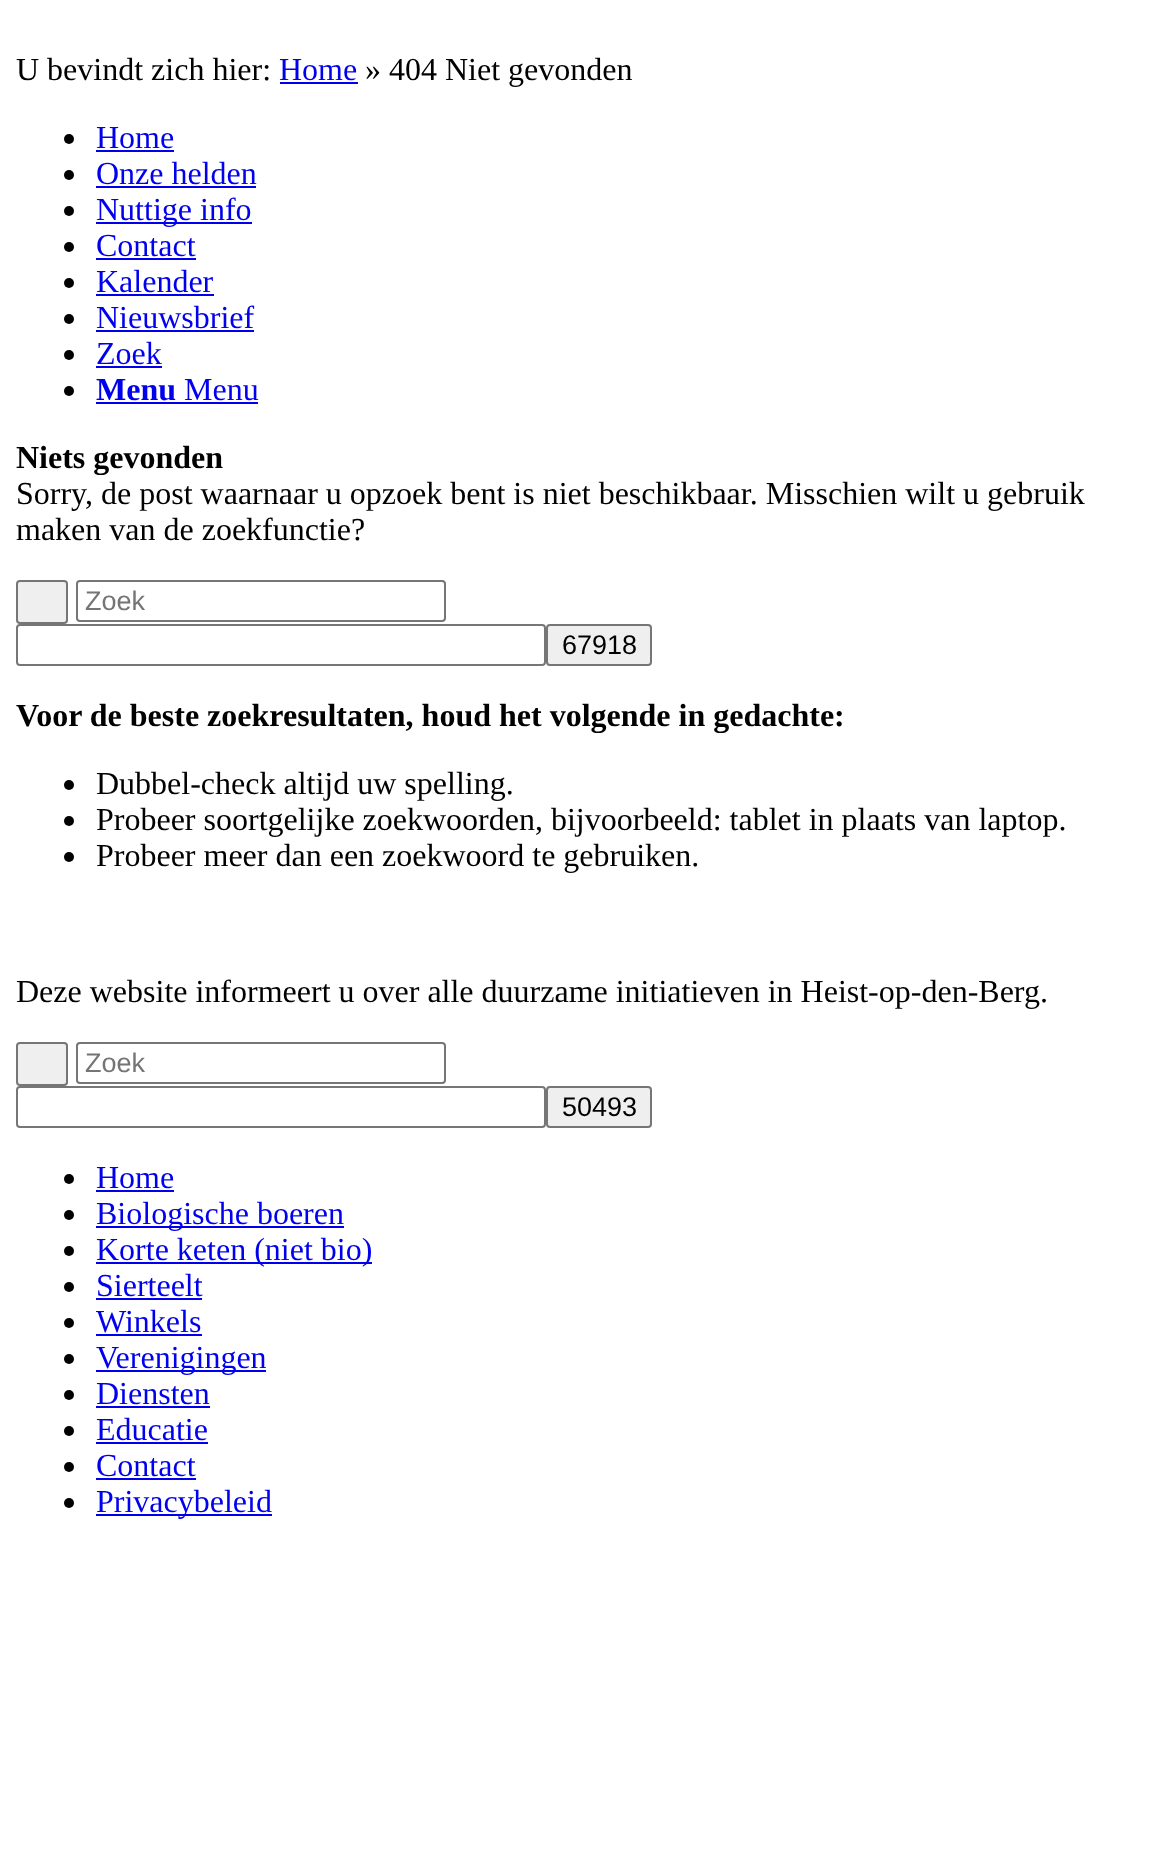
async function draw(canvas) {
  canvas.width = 1175
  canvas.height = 1851
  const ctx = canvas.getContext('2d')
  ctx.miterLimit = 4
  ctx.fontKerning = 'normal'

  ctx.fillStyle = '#fff'
  ctx.fillRect(0, 0, 1175, 1851)
  ctx.font = '32px Liberation Serif'
  ctx.fillStyle = '#000'
  ctx.fillText('U bevindt zich hier:', 16, 80)
  ctx.fillStyle = '#00e'
  ctx.fillText('Home', 279, 80)
  ctx.fillRect(280, 82, 78, 2)
  ctx.fillStyle = '#000'
  ctx.fillText('» 404 Niet gevonden', 365, 80)
  ctx.beginPath()
  ctx.arc(69, 139, 5, 0, 2 * Math.PI)
  ctx.fill()
  ctx.fillStyle = '#00e'
  ctx.fillText('Home', 96, 148)
  ctx.fillRect(96, 150, 78, 2)
  ctx.fillStyle = '#000'
  ctx.beginPath()
  ctx.arc(69, 175, 5, 0, 2 * Math.PI)
  ctx.fill()
  ctx.fillStyle = '#00e'
  ctx.fillText('Onze helden', 96, 184)
  ctx.fillRect(96, 186, 160, 2)
  ctx.fillStyle = '#000'
  ctx.beginPath()
  ctx.arc(69, 211, 5, 0, 2 * Math.PI)
  ctx.fill()
  ctx.fillStyle = '#00e'
  ctx.fillRect(96, 222, 156, 2)
  ctx.fillText('Nuttige info', 96, 220)
  ctx.fillStyle = '#000'
  ctx.beginPath()
  ctx.arc(69, 247, 5, 0, 2 * Math.PI)
  ctx.fill()
  ctx.fillStyle = '#00e'
  ctx.fillText('Contact', 96, 256)
  ctx.fillRect(96, 258, 100, 2)
  ctx.fillStyle = '#000'
  ctx.beginPath()
  ctx.arc(69, 283, 5, 0, 2 * Math.PI)
  ctx.fill()
  ctx.fillStyle = '#00e'
  ctx.fillText('Kalender', 96, 292)
  ctx.fillRect(96, 294, 118, 2)
  ctx.fillStyle = '#000'
  ctx.beginPath()
  ctx.arc(69, 319, 5, 0, 2 * Math.PI)
  ctx.fill()
  ctx.fillStyle = '#00e'
  ctx.fillText('Nieuwsbrief', 96, 328)
  ctx.fillRect(96, 330, 158, 2)
  ctx.fillStyle = '#000'
  ctx.beginPath()
  ctx.arc(69, 355, 5, 0, 2 * Math.PI)
  ctx.fill()
  ctx.fillStyle = '#00e'
  ctx.fillText('Zoek', 96, 364)
  ctx.fillRect(96, 366, 66, 2)
  ctx.fillStyle = '#000'
  ctx.beginPath()
  ctx.arc(69, 391, 5, 0, 2 * Math.PI)
  ctx.fill()
  ctx.font = 'bold 32px Liberation Serif'
  ctx.fillStyle = '#00e'
  ctx.fillText('Menu', 96, 400)
  ctx.fillRect(96, 402, 162, 2)
  ctx.font = '32px Liberation Serif'
  ctx.fillText('Menu', 184, 400)
  ctx.font = 'bold 32px Liberation Serif'
  ctx.fillStyle = '#000'
  ctx.fillText('Niets gevonden', 16, 468)
  ctx.font = '32px Liberation Serif'
  ctx.fillText('Sorry, de post waarnaar u opzoek bent is niet beschikbaar. Misschien wilt u gebruik', 16, 504)
  ctx.fillText('maken van de zoekfunctie?', 16, 540)
  ctx.fillStyle = '#efefef'
  ctx.beginPath()
  ctx.roundRect(17, 581, 50, 42, 3)
  ctx.fill()
  ctx.strokeStyle = '#767676'
  ctx.lineWidth = 2
  ctx.stroke()
  ctx.beginPath()
  ctx.roundRect(77, 581, 368, 40, 3)
  ctx.stroke()
  ctx.font = '27px Liberation Sans'
  ctx.fillStyle = '#757575'
  ctx.fillText('Zoek', 85, 610)
  ctx.beginPath()
  ctx.roundRect(17, 625, 528, 40, 3)
  ctx.stroke()
  ctx.fillStyle = '#efefef'
  ctx.beginPath()
  ctx.roundRect(547, 625, 104, 40, 3)
  ctx.fill()
  ctx.stroke()
  ctx.fillStyle = '#000'
  ctx.fillText('67918', 562, 654)
  ctx.font = 'bold 32px Liberation Serif'
  ctx.fillText('Voor de beste zoekresultaten, houd het volgende in gedachte:', 16, 726)
  ctx.beginPath()
  ctx.arc(69, 785, 5, 0, 2 * Math.PI)
  ctx.fill()
  ctx.font = '32px Liberation Serif'
  ctx.fillText('Dubbel-check altijd uw spelling.', 96, 794)
  ctx.beginPath()
  ctx.arc(69, 821, 5, 0, 2 * Math.PI)
  ctx.fill()
  ctx.fillText('Probeer soortgelijke zoekwoorden, bijvoorbeeld: tablet in plaats van laptop.', 96, 830)
  ctx.beginPath()
  ctx.arc(69, 857, 5, 0, 2 * Math.PI)
  ctx.fill()
  ctx.fillText('Probeer meer dan een zoekwoord te gebruiken.', 96, 866)
  ctx.fillText('Deze website informeert u over alle duurzame initiatieven in Heist-op-den-Berg.', 16, 1002)
  ctx.fillStyle = '#efefef'
  ctx.beginPath()
  ctx.roundRect(17, 1043, 50, 42, 3)
  ctx.fill()
  ctx.stroke()
  ctx.beginPath()
  ctx.roundRect(77, 1043, 368, 40, 3)
  ctx.stroke()
  ctx.font = '27px Liberation Sans'
  ctx.fillStyle = '#757575'
  ctx.fillText('Zoek', 85, 1072)
  ctx.beginPath()
  ctx.roundRect(17, 1087, 528, 40, 3)
  ctx.stroke()
  ctx.fillStyle = '#efefef'
  ctx.beginPath()
  ctx.roundRect(547, 1087, 104, 40, 3)
  ctx.fill()
  ctx.stroke()
  ctx.fillStyle = '#000'
  ctx.fillText('50493', 562, 1116)
  ctx.beginPath()
  ctx.arc(69, 1179, 5, 0, 2 * Math.PI)
  ctx.fill()
  ctx.font = '32px Liberation Serif'
  ctx.fillStyle = '#00e'
  ctx.fillText('Home', 96, 1188)
  ctx.fillRect(96, 1190, 78, 2)
  ctx.fillStyle = '#000'
  ctx.beginPath()
  ctx.arc(69, 1215, 5, 0, 2 * Math.PI)
  ctx.fill()
  ctx.fillStyle = '#00e'
  ctx.fillRect(96, 1226, 248, 2)
  ctx.fillText('Biologische boeren', 96, 1224)
  ctx.fillStyle = '#000'
  ctx.beginPath()
  ctx.arc(69, 1251, 5, 0, 2 * Math.PI)
  ctx.fill()
  ctx.fillStyle = '#00e'
  ctx.fillRect(96, 1262, 276, 2)
  ctx.fillText('Korte keten (niet bio)', 96, 1260)
  ctx.fillStyle = '#000'
  ctx.beginPath()
  ctx.arc(69, 1287, 5, 0, 2 * Math.PI)
  ctx.fill()
  ctx.fillStyle = '#00e'
  ctx.fillText('Sierteelt', 96, 1296)
  ctx.fillRect(96, 1298, 106, 2)
  ctx.fillStyle = '#000'
  ctx.beginPath()
  ctx.arc(69, 1323, 5, 0, 2 * Math.PI)
  ctx.fill()
  ctx.fillStyle = '#00e'
  ctx.fillText('Winkels', 96, 1332)
  ctx.fillRect(96, 1334, 106, 2)
  ctx.fillStyle = '#000'
  ctx.beginPath()
  ctx.arc(69, 1359, 5, 0, 2 * Math.PI)
  ctx.fill()
  ctx.fillStyle = '#00e'
  ctx.fillRect(96, 1370, 170, 2)
  ctx.fillText('Verenigingen', 96, 1368)
  ctx.fillStyle = '#000'
  ctx.beginPath()
  ctx.arc(69, 1395, 5, 0, 2 * Math.PI)
  ctx.fill()
  ctx.fillStyle = '#00e'
  ctx.fillText('Diensten', 96, 1404)
  ctx.fillRect(96, 1406, 114, 2)
  ctx.fillStyle = '#000'
  ctx.beginPath()
  ctx.arc(69, 1431, 5, 0, 2 * Math.PI)
  ctx.fill()
  ctx.fillStyle = '#00e'
  ctx.fillText('Educatie', 96, 1440)
  ctx.fillRect(96, 1442, 112, 2)
  ctx.fillStyle = '#000'
  ctx.beginPath()
  ctx.arc(69, 1467, 5, 0, 2 * Math.PI)
  ctx.fill()
  ctx.fillStyle = '#00e'
  ctx.fillText('Contact', 96, 1476)
  ctx.fillRect(96, 1478, 100, 2)
  ctx.fillStyle = '#000'
  ctx.beginPath()
  ctx.arc(69, 1503, 5, 0, 2 * Math.PI)
  ctx.fill()
  ctx.fillStyle = '#00e'
  ctx.fillRect(96, 1514, 176, 2)
  ctx.fillText('Privacybeleid', 96, 1512)
}

draw(document.querySelector('canvas'))
